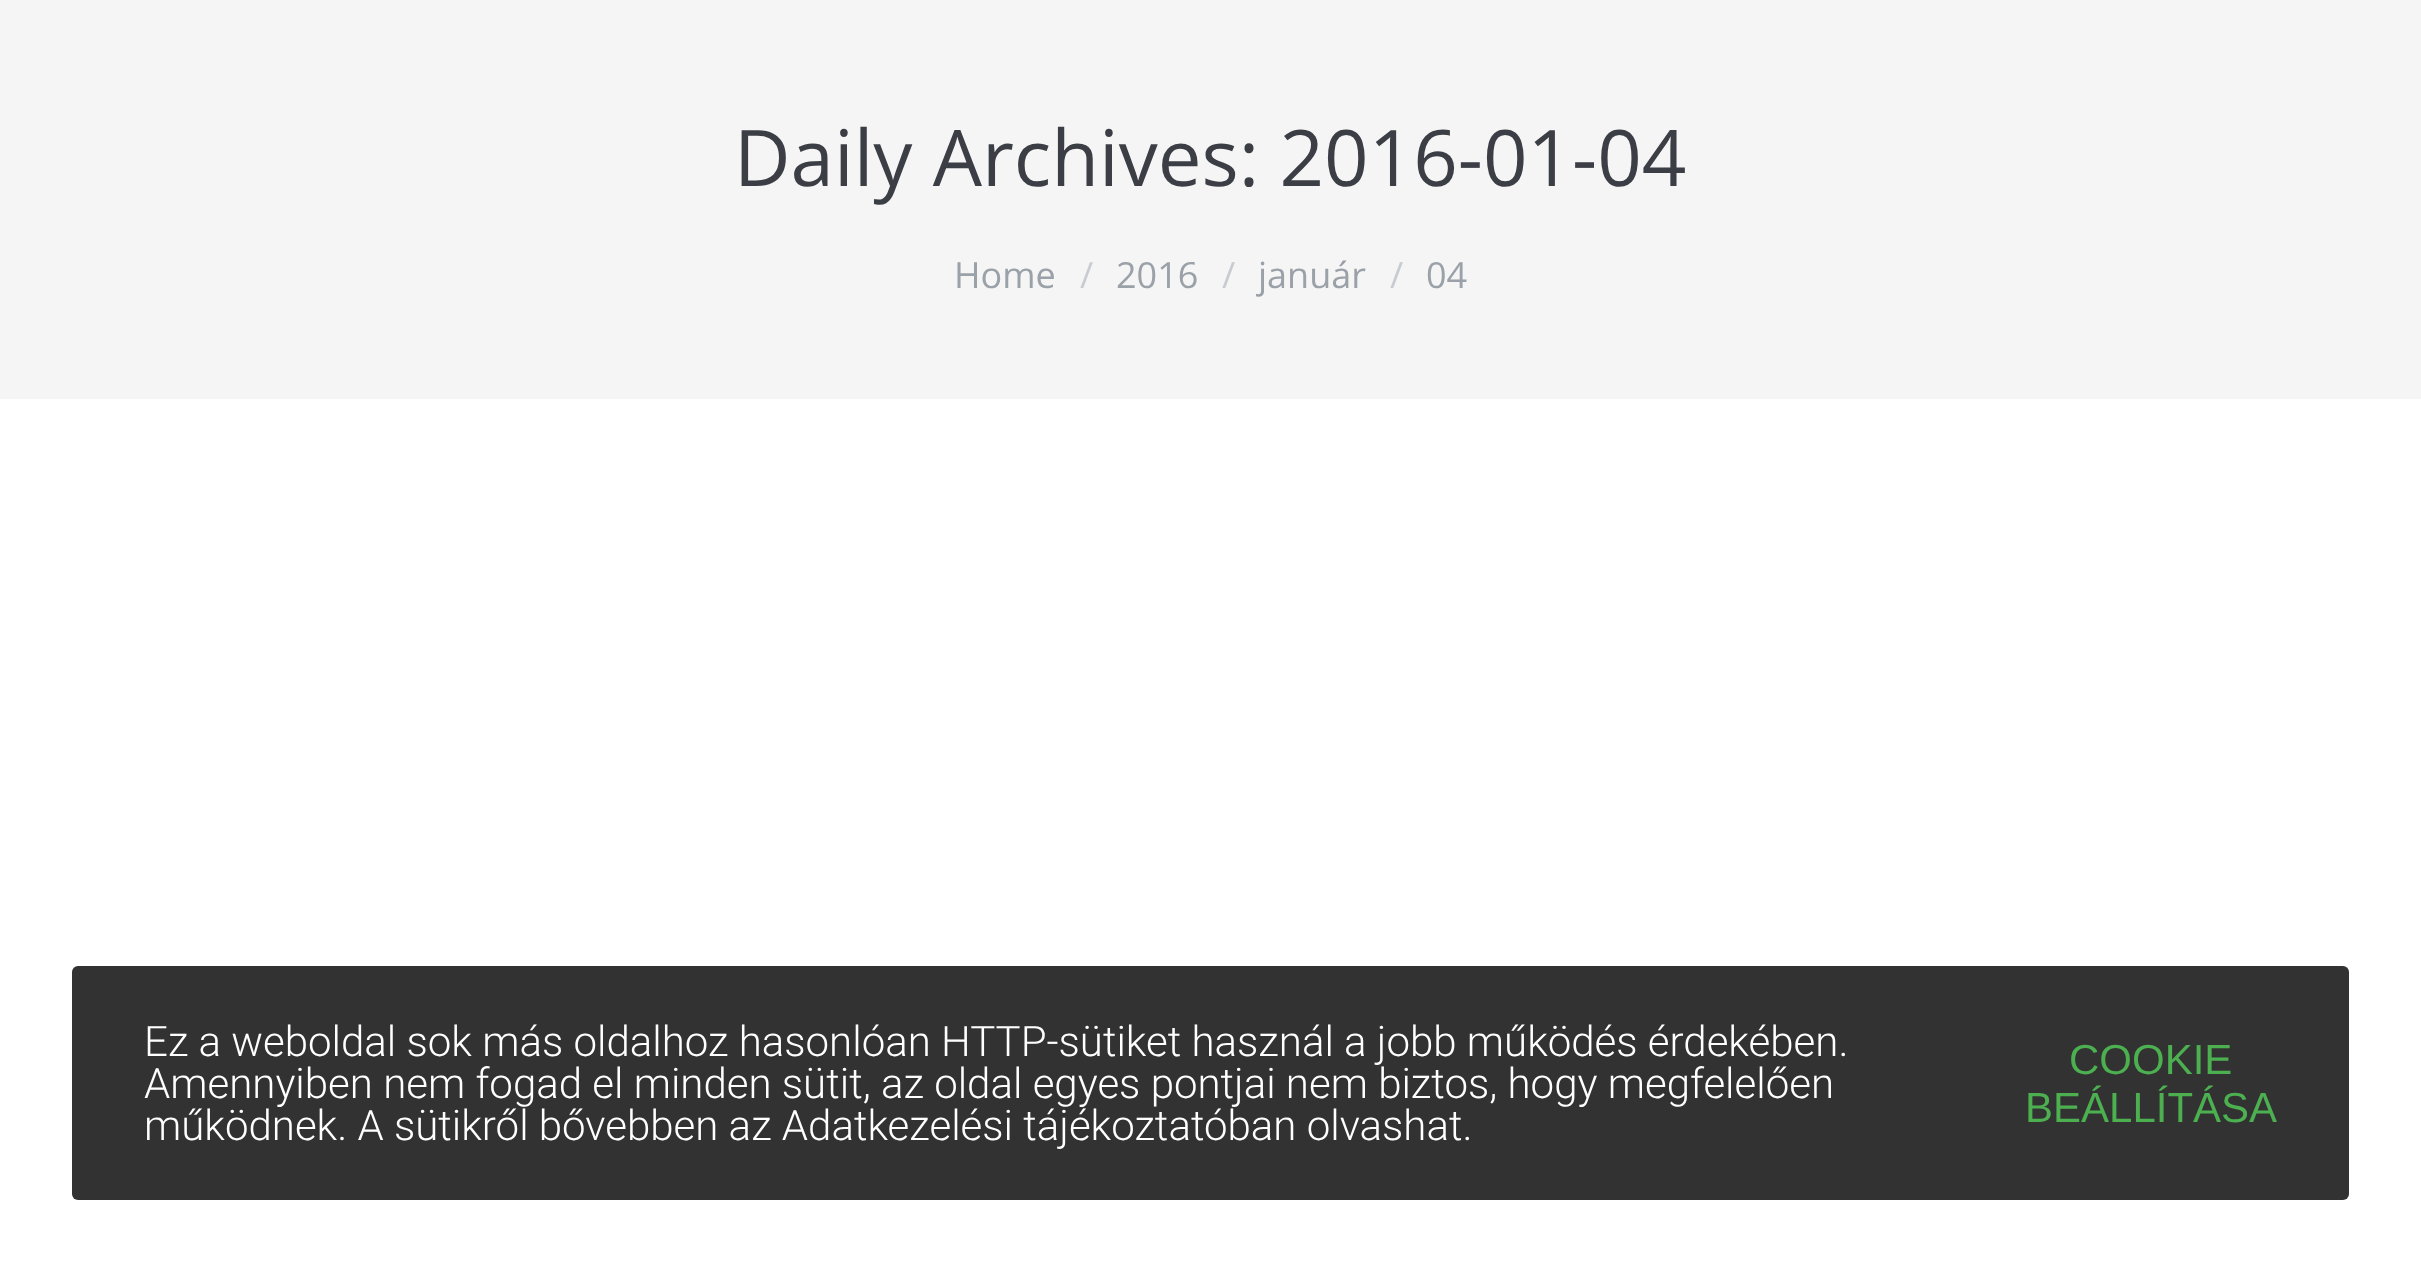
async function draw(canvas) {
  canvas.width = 2421
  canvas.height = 1271
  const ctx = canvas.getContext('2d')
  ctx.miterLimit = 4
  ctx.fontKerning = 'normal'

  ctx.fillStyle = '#fff'
  ctx.fillRect(0, 0, 2421, 1271)
  ctx.fillStyle = '#f5f5f5'
  ctx.fillRect(0, 0, 2421, 399)
  ctx.font = '78px Open Sans'
  ctx.fillStyle = '#3c3e45'
  ctx.fillText('Daily Archives: 2016-01-04', 734, 186)
  ctx.font = '36px Open Sans'
  ctx.fillStyle = '#9ba1a8'
  ctx.fillText('Home', 954, 288)
  ctx.fillStyle = '#c8cbcf'
  ctx.fillText('/', 1080, 288)
  ctx.fillStyle = '#9ba1a8'
  ctx.fillText('2016', 1116, 288)
  ctx.fillStyle = '#c8cbcf'
  ctx.fillText('/', 1222, 288)
  ctx.fillStyle = '#9ba1a8'
  ctx.fillText('január', 1258, 288)
  ctx.fillStyle = '#c8cbcf'
  ctx.fillText('/', 1390, 288)
  ctx.fillStyle = '#9ba1a8'
  ctx.fillText('04', 1426, 288)
  ctx.fillStyle = '#323232'
  ctx.beginPath()
  ctx.roundRect(72, 966, 2277, 234, 6)
  ctx.fill()
  ctx.font = '300 42px Roboto'
  ctx.fillStyle = '#fff'
  ctx.fillText('Ez a weboldal sok más oldalhoz hasonlóan HTTP-sütiket használ a jobb működés érdekében.', 144, 1056)
  ctx.fillText('Amennyiben nem fogad el minden sütit, az oldal egyes pontjai nem biztos, hogy megfelelően', 144, 1098)
  ctx.fillText('működnek. A sütikről bővebben az Adatkezelési tájékoztatóban olvashat.', 144, 1140)
  ctx.font = '42px Liberation Sans'
  ctx.fillStyle = '#4caf50'
  ctx.fillText('COOKIE', 2069, 1074)
  ctx.fillText('BEÁLLÍTÁSA', 2025, 1122)
}

draw(document.querySelector('canvas'))
